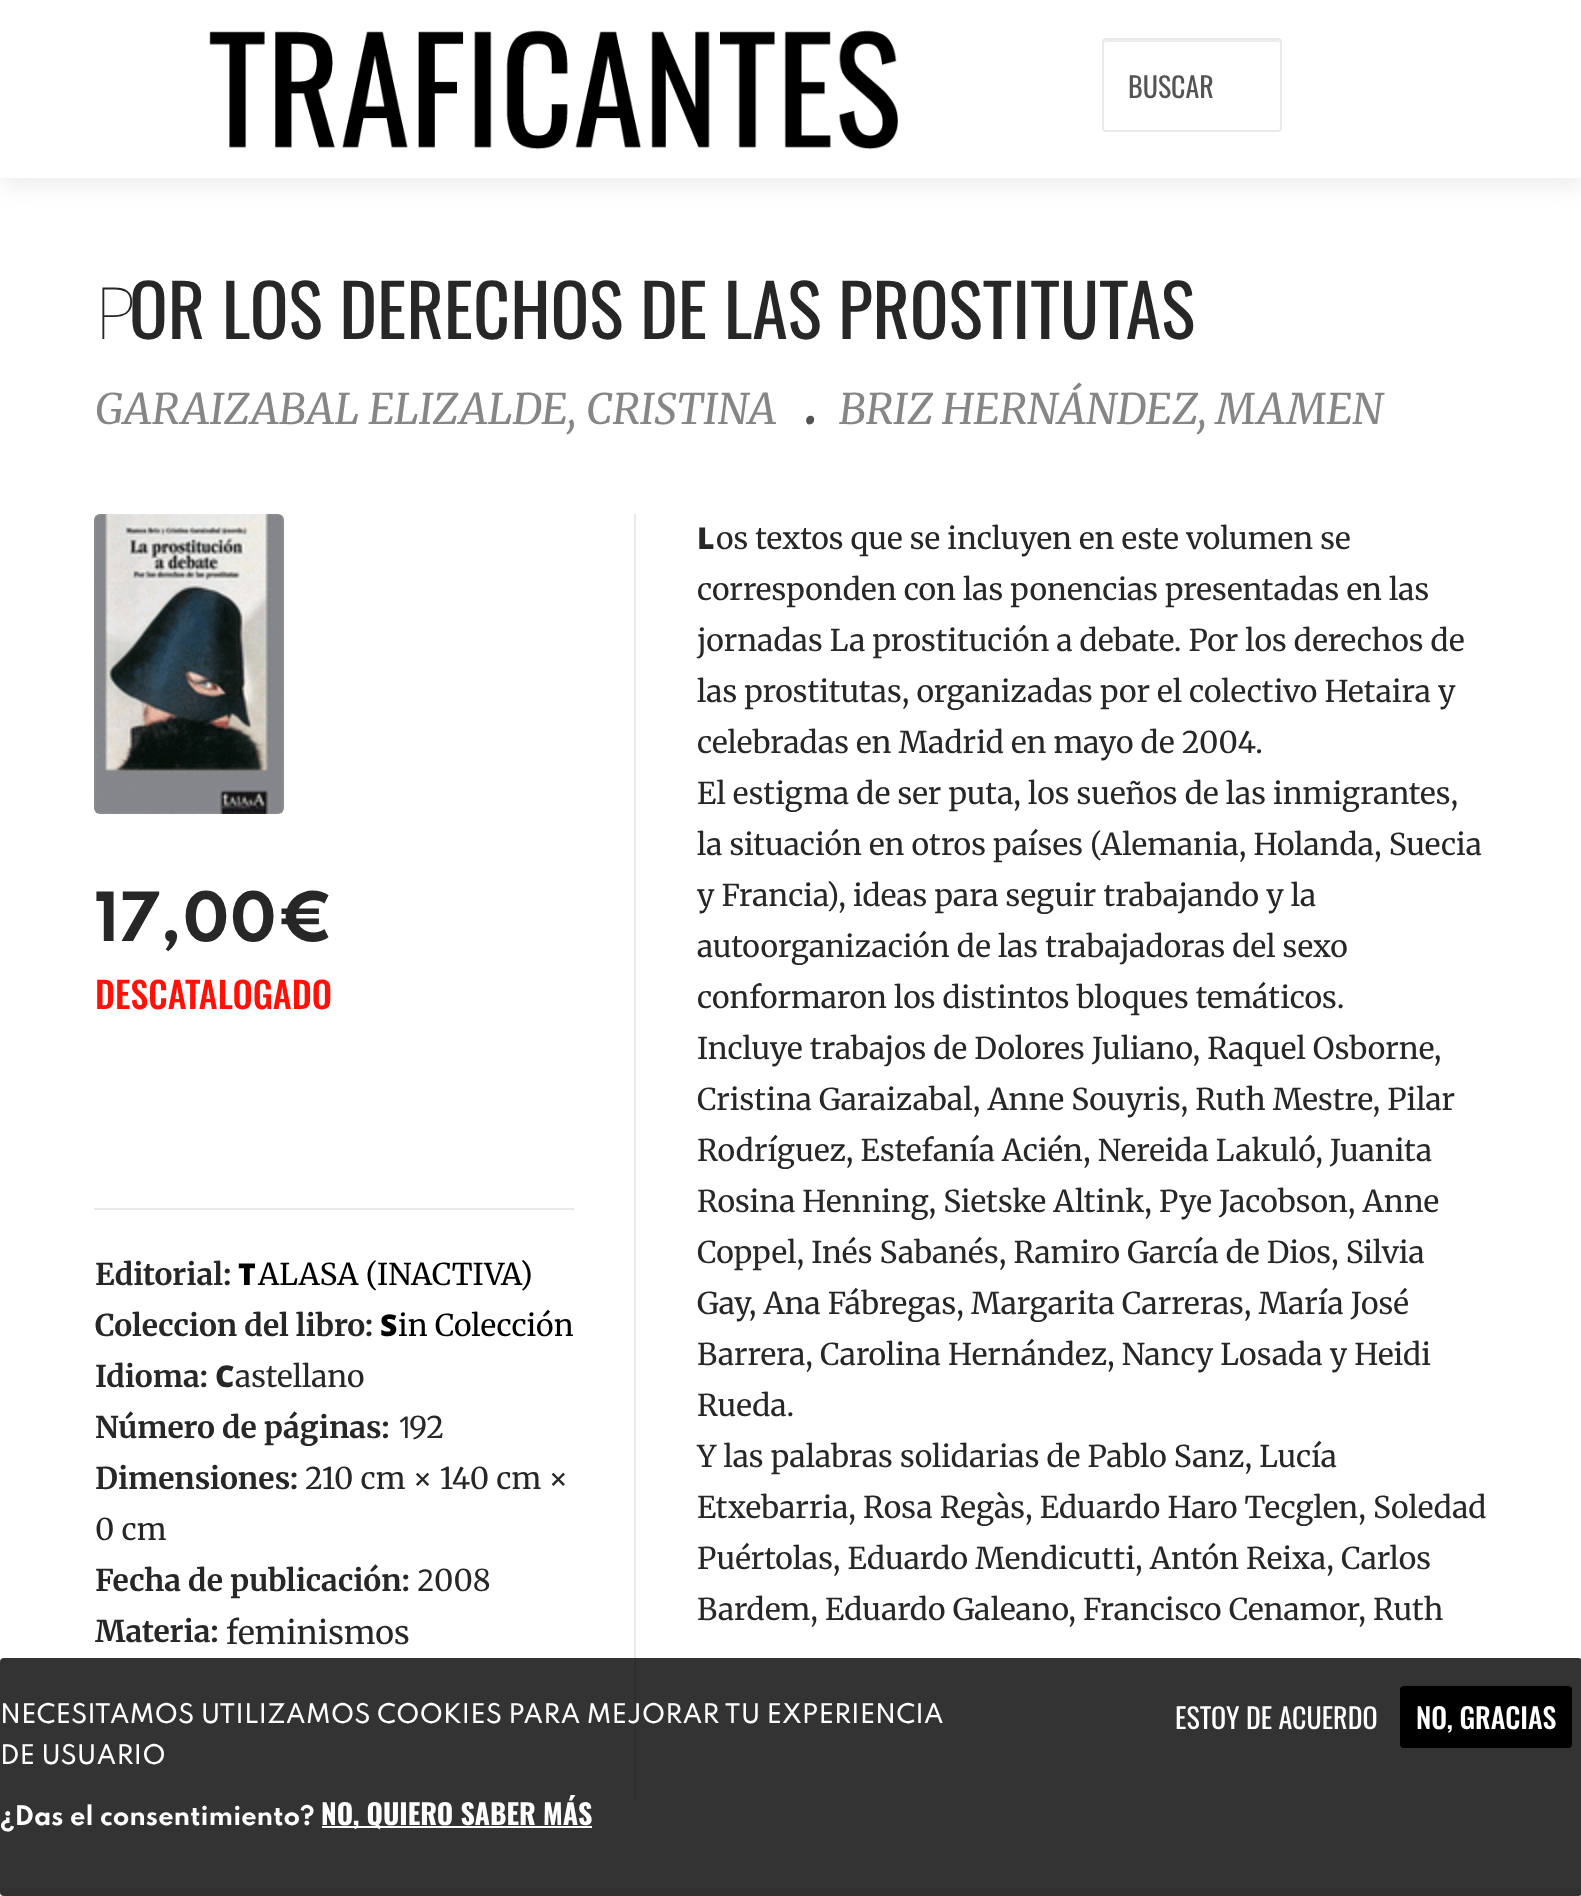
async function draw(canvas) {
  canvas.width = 1581
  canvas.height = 1896
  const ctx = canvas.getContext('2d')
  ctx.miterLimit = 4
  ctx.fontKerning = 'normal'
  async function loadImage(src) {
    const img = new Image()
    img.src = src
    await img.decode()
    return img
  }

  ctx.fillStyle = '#fff'
  ctx.fillRect(0, 0, 1581, 1896)
  ctx.fillStyle = '#eaeaea'
  ctx.filter = 'blur(13px)'
  ctx.beginPath()
  ctx.rect(0, 4, 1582, 180)
  ctx.fill()
  ctx.filter = 'none'
  ctx.fillStyle = '#fff'
  ctx.fillRect(0, 0, 1581, 178)
  ctx.drawImage(await loadImage('image0.png'), 209, 30, 689, 120)
  ctx.fillStyle = '#ececec'
  ctx.beginPath()
  ctx.moveTo(1106, 42)
  ctx.lineTo(1278, 42)
  ctx.bezierCurveTo(1279, 42, 1280, 43, 1280, 44)
  ctx.bezierCurveTo(1280, 43, 1280, 40, 1278, 40)
  ctx.lineTo(1106, 40)
  ctx.bezierCurveTo(1104, 40, 1104, 43, 1104, 44)
  ctx.bezierCurveTo(1104, 43, 1105, 42, 1106, 42)
  ctx.closePath()
  ctx.fill()
  ctx.beginPath()
  ctx.roundRect(1103, 39, 178, 92, 3)
  ctx.strokeStyle = '#eaeaea'
  ctx.lineWidth = 2
  ctx.stroke()
  ctx.font = '28px Oswald'
  ctx.fillStyle = '#545454'
  ctx.fillText('BUSCAR', 1128, 98)
  ctx.font = '100 72px Noto Sans'
  ctx.fillStyle = '#272727'
  ctx.fillText('P', 95, 339)
  ctx.font = '72px Oswald'
  ctx.fillText('OR LOS DERECHOS DE LAS PROSTITUTAS', 129, 339)
  ctx.font = 'italic 42px Merriweather'
  ctx.fillStyle = '#868686'
  ctx.fillText('GARAIZABAL ELIZALDE, CRISTINA', 95, 424)
  ctx.font = 'italic bold 56px Merriweather'
  ctx.fillStyle = '#545454'
  ctx.fillText('.', 805, 424)
  ctx.font = 'italic 42px Merriweather'
  ctx.fillStyle = '#868686'
  ctx.fillText('BRIZ HERNÁNDEZ, MAMEN', 839, 424)
  ctx.drawImage(await loadImage('image1.png'), 94, 514, 190, 300)
  ctx.fillStyle = '#eaeaea'
  ctx.fillRect(634, 514, 2, 1284)
  ctx.font = '30px Merriweather'
  ctx.fillStyle = '#272727'
  ctx.fillText('os textos que se incluyen en este volumen se', 716, 549)
  ctx.fillText('corresponden con las ponencias presentadas en las', 697, 600)
  ctx.fillText('jornadas La prostitución a debate. Por los derechos de', 697, 651)
  ctx.fillText('las prostitutas, organizadas por el colectivo Hetaira y', 697, 702)
  ctx.fillText('celebradas en Madrid en mayo de 2004.', 697, 753)
  ctx.fillText('El estigma de ser puta, los sueños de las inmigrantes,', 697, 804)
  ctx.fillText('la situación en otros países (Alemania, Holanda, Suecia', 697, 855)
  ctx.fillText('y Francia), ideas para seguir trabajando y la', 697, 906)
  ctx.fillText('autoorganización de las trabajadoras del sexo', 697, 957)
  ctx.fillText('conformaron los distintos bloques temáticos.', 697, 1008)
  ctx.fillText('Incluye trabajos de Dolores Juliano, Raquel Osborne,', 697, 1059)
  ctx.fillText('Cristina Garaizabal, Anne Souyris, Ruth Mestre, Pilar', 697, 1110)
  ctx.fillText('Rodríguez, Estefanía Acién, Nereida Lakuló, Juanita', 697, 1161)
  ctx.fillText('Rosina Henning, Sietske Altink, Pye Jacobson, Anne', 697, 1212)
  ctx.fillText('Coppel, Inés Sabanés, Ramiro García de Dios, Silvia', 697, 1263)
  ctx.fillText('Gay, Ana Fábregas, Margarita Carreras, María José', 697, 1314)
  ctx.fillText('Barrera, Carolina Hernández, Nancy Losada y Heidi', 697, 1365)
  ctx.fillText('Rueda.', 697, 1416)
  ctx.fillText('Y las palabras solidarias de Pablo Sanz, Lucía', 697, 1467)
  ctx.fillText('Etxebarria, Rosa Regàs, Eduardo Haro Tecglen, Soledad', 697, 1518)
  ctx.fillText('Puértolas, Eduardo Mendicutti, Antón Reixa, Carlos', 697, 1569)
  ctx.fillText('Bardem, Eduardo Galeano, Francisco Cenamor, Ruth', 697, 1620)
  ctx.font = '900 30px Noto Sans'
  ctx.fillText('L', 697, 549)
  ctx.font = 'bold 60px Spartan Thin'
  ctx.fillText('17,00€', 95, 941)
  ctx.font = '500 36px Oswald'
  ctx.fillStyle = '#ff1108'
  ctx.fillText('DESCATALOGADO', 95, 1009)
  ctx.fillStyle = '#eaeaea'
  ctx.fillRect(94, 1208, 480, 2)
  ctx.font = 'bold 30px Merriweather'
  ctx.fillStyle = '#272727'
  ctx.fillText('Editorial:', 95, 1285)
  ctx.font = '900 30px Noto Sans'
  ctx.fillStyle = '#000'
  ctx.fillText('T', 238, 1285)
  ctx.font = '30px Merriweather'
  ctx.fillText('ALASA (INACTIVA)', 258, 1285)
  ctx.font = 'bold 30px Merriweather'
  ctx.fillStyle = '#272727'
  ctx.fillText('Coleccion del libro:', 95, 1336)
  ctx.font = '900 30px Noto Sans'
  ctx.fillStyle = '#000'
  ctx.fillText('S', 380, 1336)
  ctx.font = '30px Merriweather'
  ctx.fillText('in Colección', 398, 1336)
  ctx.font = 'bold 30px Merriweather'
  ctx.fillStyle = '#272727'
  ctx.fillText('Idioma:', 95, 1387)
  ctx.font = '900 30px Noto Sans'
  ctx.fillText('C', 215, 1387)
  ctx.font = '30px Merriweather'
  ctx.fillText('astellano', 235, 1387)
  ctx.font = 'bold 30px Merriweather'
  ctx.fillText('Número de páginas:', 95, 1438)
  ctx.font = '30px Noto Sans'
  ctx.fillText('1', 397, 1438)
  ctx.font = '30px Merriweather'
  ctx.fillText('92', 409, 1438)
  ctx.font = 'bold 30px Merriweather'
  ctx.fillText('Dimensiones:', 95, 1489)
  ctx.font = '30px Merriweather'
  ctx.fillText('210 cm × 140 cm ×', 305, 1489)
  ctx.fillText('0 cm', 95, 1540)
  ctx.font = 'bold 30px Merriweather'
  ctx.fillText('Fecha de publicación:', 95, 1591)
  ctx.font = '30px Noto Sans'
  ctx.fillText('2', 417, 1591)
  ctx.font = '30px Merriweather'
  ctx.fillText('008', 434, 1591)
  ctx.font = 'bold 30px Merriweather'
  ctx.fillText('Materia:', 95, 1642)
  ctx.font = '32px Merriweather'
  ctx.fillText('feminismos', 226, 1644)
  ctx.fillStyle = '#f6f6f6'
  ctx.fillRect(0, 1888, 1581, 8)
  ctx.fillStyle = '#000000cc'
  ctx.beginPath()
  ctx.roundRect(0, 1658, 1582, 238, 4)
  ctx.fill()
  ctx.font = '500 24px Spartan Thin'
  ctx.fillStyle = '#fff'
  ctx.fillText('NECESITAMOS UTILIZAMOS COOKIES PARA MEJORAR TU EXPERIENCIA', 0, 1723)
  ctx.fillText('DE USUARIO', 0, 1764)
  ctx.font = 'bold 24px Spartan Thin'
  ctx.fillText('¿Das el consentimiento?', 0, 1825)
  ctx.fillRect(322, 1826, 270, 2)
  ctx.font = 'bold 28px Oswald'
  ctx.fillText('NO, QUIERO SABER MÁS', 321, 1825)
  ctx.font = '28px Oswald'
  ctx.fillText('ESTOY DE ACUERDO', 1175, 1729)
  ctx.fillStyle = '#000'
  ctx.beginPath()
  ctx.roundRect(1400, 1686, 172, 62, 4)
  ctx.fill()
  ctx.font = '500 28px Oswald'
  ctx.fillStyle = '#fff'
  ctx.fillText('NO, GRACIAS', 1416, 1729)
}

draw(document.querySelector('canvas'))
